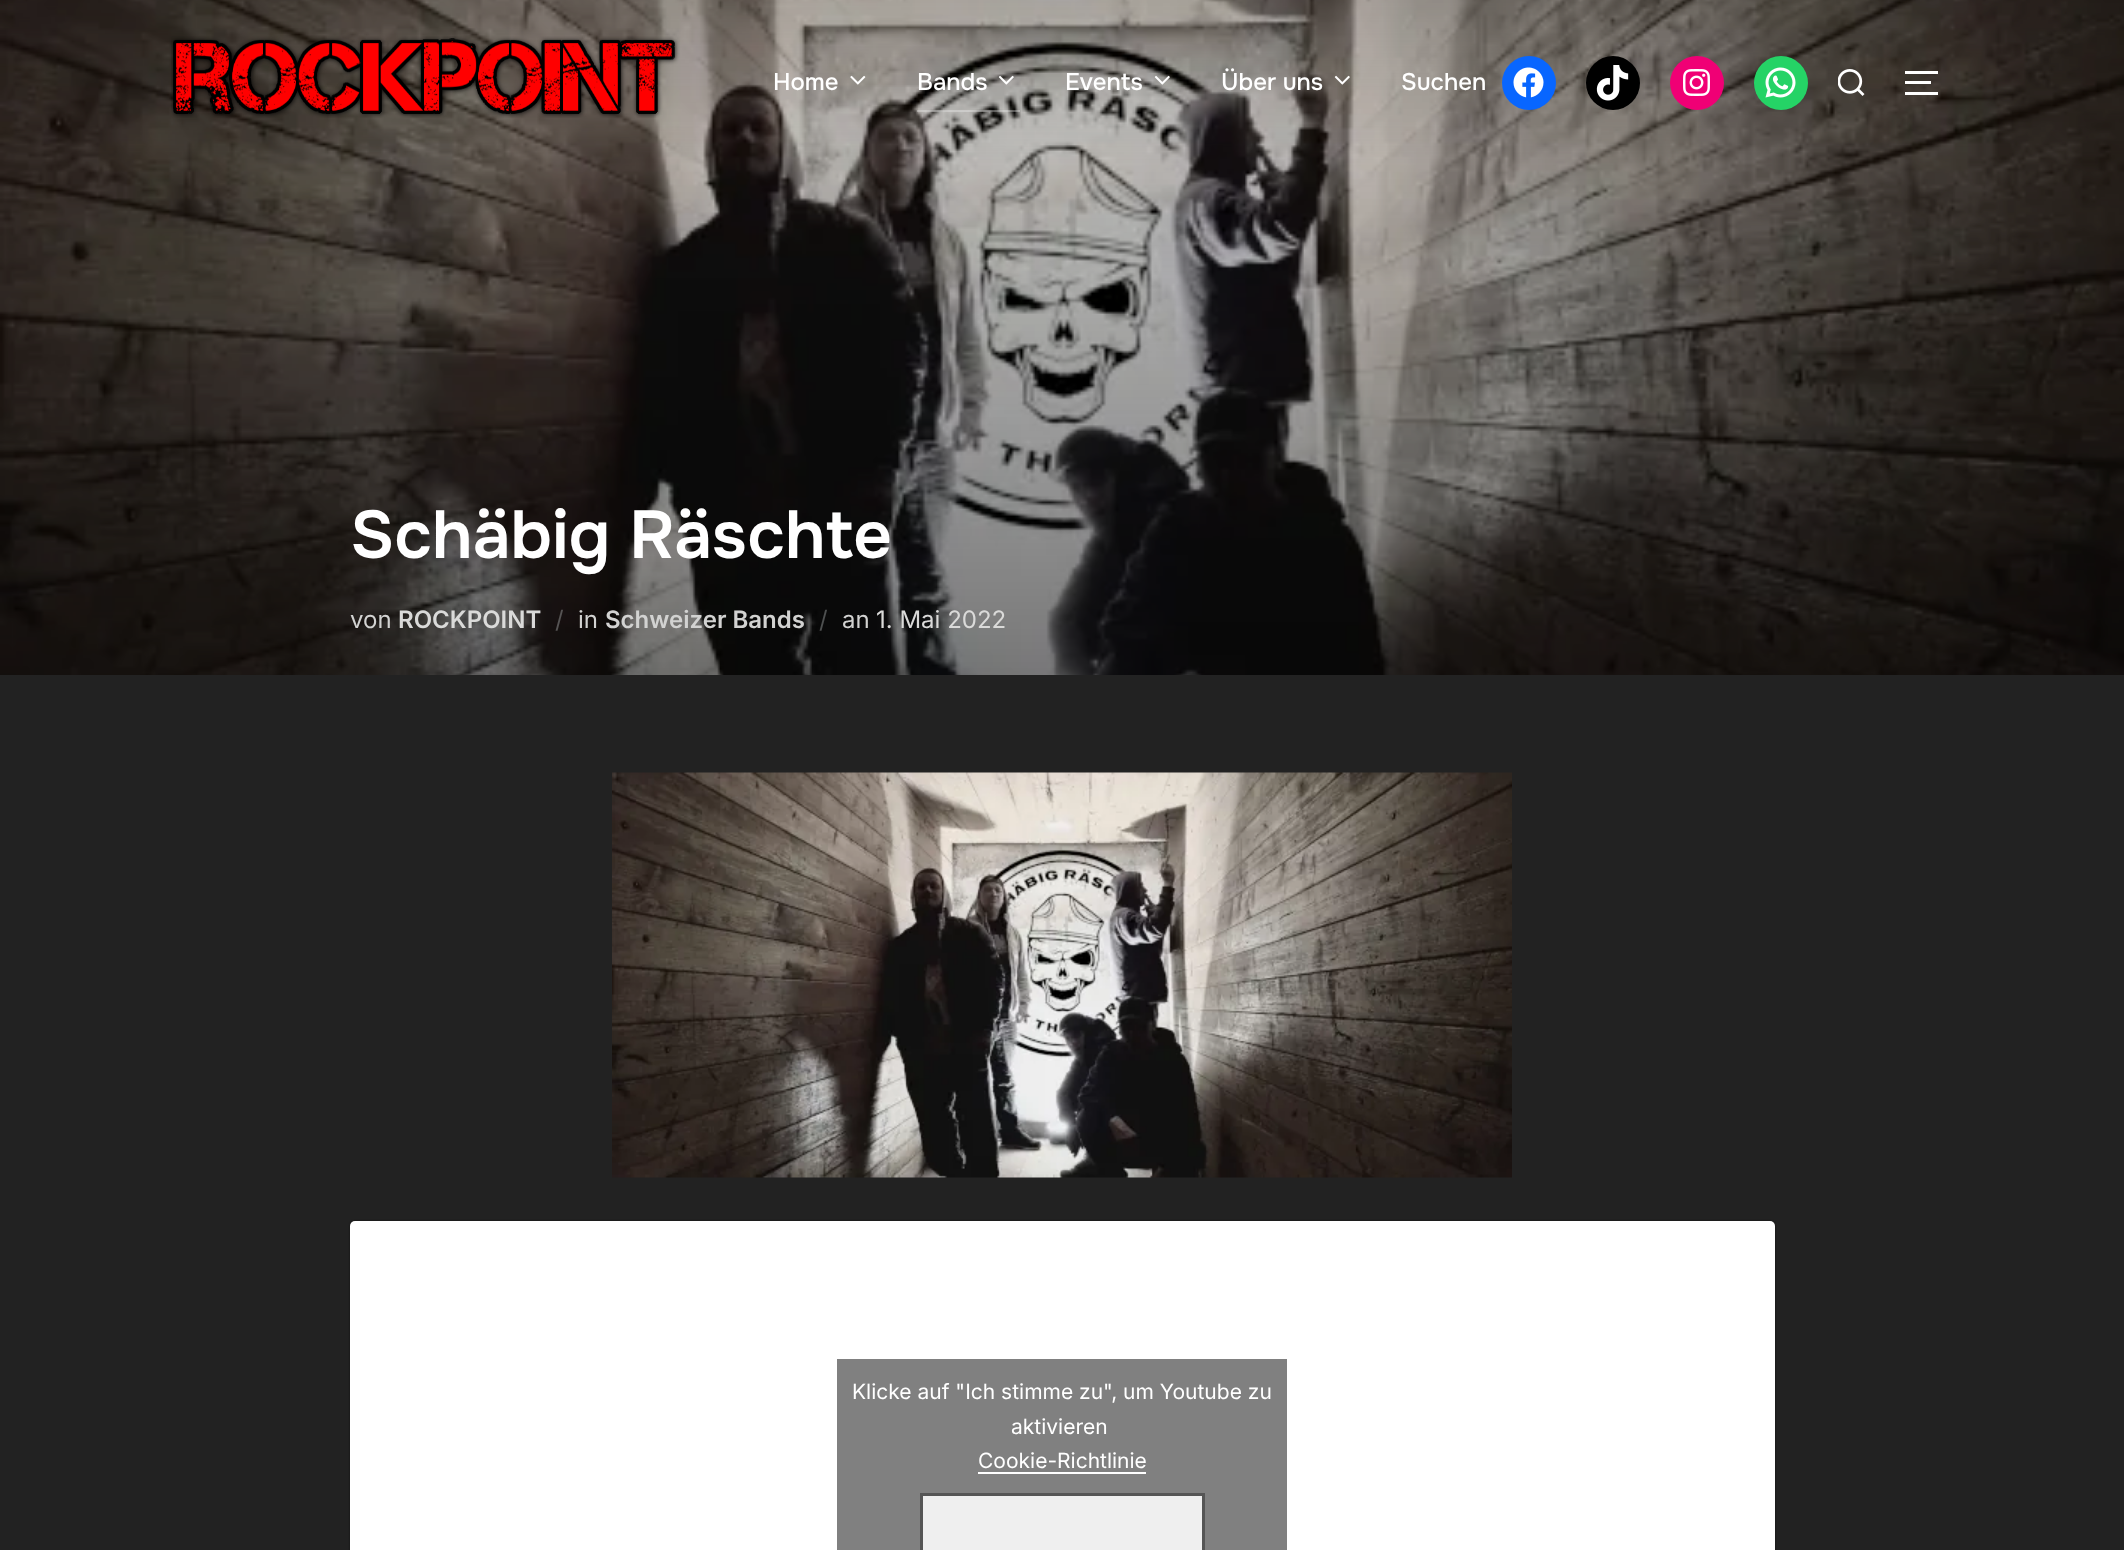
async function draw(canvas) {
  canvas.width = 2124
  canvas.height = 1550
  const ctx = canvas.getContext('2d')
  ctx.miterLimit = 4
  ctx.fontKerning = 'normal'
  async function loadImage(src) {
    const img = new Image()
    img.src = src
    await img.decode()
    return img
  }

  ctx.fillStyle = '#222'
  ctx.fillRect(0, 0, 2124, 1550)
  ctx.drawImage(await loadImage('image10.png'), 0, 0, 2124, 675)
  ctx.drawImage(await loadImage('image0.png'), 171, 36, 509, 82)
  ctx.font = '500 24px Onest'
  ctx.fillStyle = '#fff'
  ctx.fillText('Home', 773, 90)
  ctx.drawImage(await loadImage('image1.png'), 850, 75, 16, 10)
  ctx.fillStyle = '#ffffff4d'
  ctx.fillRect(917, 110, 103, 2)
  ctx.fillStyle = '#fff'
  ctx.fillText('Bands', 917, 90)
  ctx.drawImage(await loadImage('image2.png'), 998, 75, 16, 10)
  ctx.fillText('Events', 1065, 90)
  ctx.drawImage(await loadImage('image3.png'), 1154, 75, 16, 10)
  ctx.fillText('Über uns', 1221, 90)
  ctx.drawImage(await loadImage('image4.png'), 1334, 75, 16, 10)
  ctx.fillText('Suchen', 1401, 90)
  ctx.fillStyle = '#0866ff'
  ctx.beginPath()
  ctx.arc(1529, 83, 27, 0, 2 * Math.PI)
  ctx.fill()
  ctx.drawImage(await loadImage('image5.png'), 1513, 67, 31, 31)
  ctx.fillStyle = '#000'
  ctx.beginPath()
  ctx.arc(1613, 83, 27, 0, 2 * Math.PI)
  ctx.fill()
  ctx.drawImage(await loadImage('image6.png'), 1596, 65, 33, 36)
  ctx.fillStyle = '#f00075'
  ctx.beginPath()
  ctx.arc(1697, 83, 27, 0, 2 * Math.PI)
  ctx.fill()
  ctx.drawImage(await loadImage('image7.png'), 1683, 69, 27, 27)
  ctx.fillStyle = '#25d366'
  ctx.beginPath()
  ctx.arc(1781, 83, 27, 0, 2 * Math.PI)
  ctx.fill()
  ctx.drawImage(await loadImage('image8.png'), 1765, 67, 31, 31)
  ctx.drawImage(await loadImage('image9.png'), 1838, 69, 27, 27)
  ctx.fillStyle = '#fff'
  ctx.fillRect(1905, 71, 33, 3)
  ctx.fillRect(1905, 81, 26, 3)
  ctx.fillRect(1905, 92, 33, 3)
  ctx.font = '600 67.5px Onest'
  ctx.fillText('Schäbig Räschte', 350, 558)
  ctx.font = '24px Inter'
  ctx.fillStyle = '#d2d2d1'
  ctx.fillText('von', 350, 628)
  ctx.font = '600 24px Inter'
  ctx.fillStyle = '#dadad9'
  ctx.fillText('ROCKPOINT', 398, 628)
  ctx.font = '24px Inter'
  ctx.fillStyle = '#565454'
  ctx.fillText('/', 555, 628)
  ctx.fillStyle = '#d2d2d1'
  ctx.fillText('in', 578, 628)
  ctx.font = '600 24px Inter'
  ctx.fillText('Schweizer Bands', 605, 628)
  ctx.font = '24px Inter'
  ctx.fillStyle = '#4e5050'
  ctx.fillText('/', 819, 628)
  ctx.fillStyle = '#d2d2d1'
  ctx.fillText('an', 842, 628)
  ctx.fillStyle = '#dadad9'
  ctx.fillText('1. Mai 2022', 876, 628)
  ctx.drawImage(await loadImage('image11.png'), 612, 772, 900, 406)
  ctx.fillStyle = '#00000080'
  ctx.filter = 'blur(1px)'
  ctx.beginPath()
  ctx.roundRect(350, 1221, 1425, 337, 5)
  ctx.fill()
  ctx.filter = 'none'
  ctx.fillStyle = '#fff'
  ctx.beginPath()
  ctx.roundRect(350, 1221, 1425, 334, 5)
  ctx.fill()
  ctx.fillStyle = '#808080'
  ctx.fillRect(837, 1359, 450, 191)
  ctx.font = '21px Inter'
  ctx.fillStyle = '#fff'
  ctx.fillText('Klicke auf "Ich stimme zu", um Youtube zu', 852, 1399)
  ctx.fillText('aktivieren', 1011, 1434)
  ctx.fillText('Cookie-Richtlinie', 978, 1468)
  ctx.fillRect(978, 1472, 168, 2)
  ctx.fillStyle = '#efefef'
  ctx.beginPath()
  ctx.rect(921.5, 1494.5, 282, 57)
  ctx.fill()
  ctx.strokeStyle = '#555'
  ctx.lineWidth = 3
  ctx.stroke()
}

draw(document.querySelector('canvas'))
